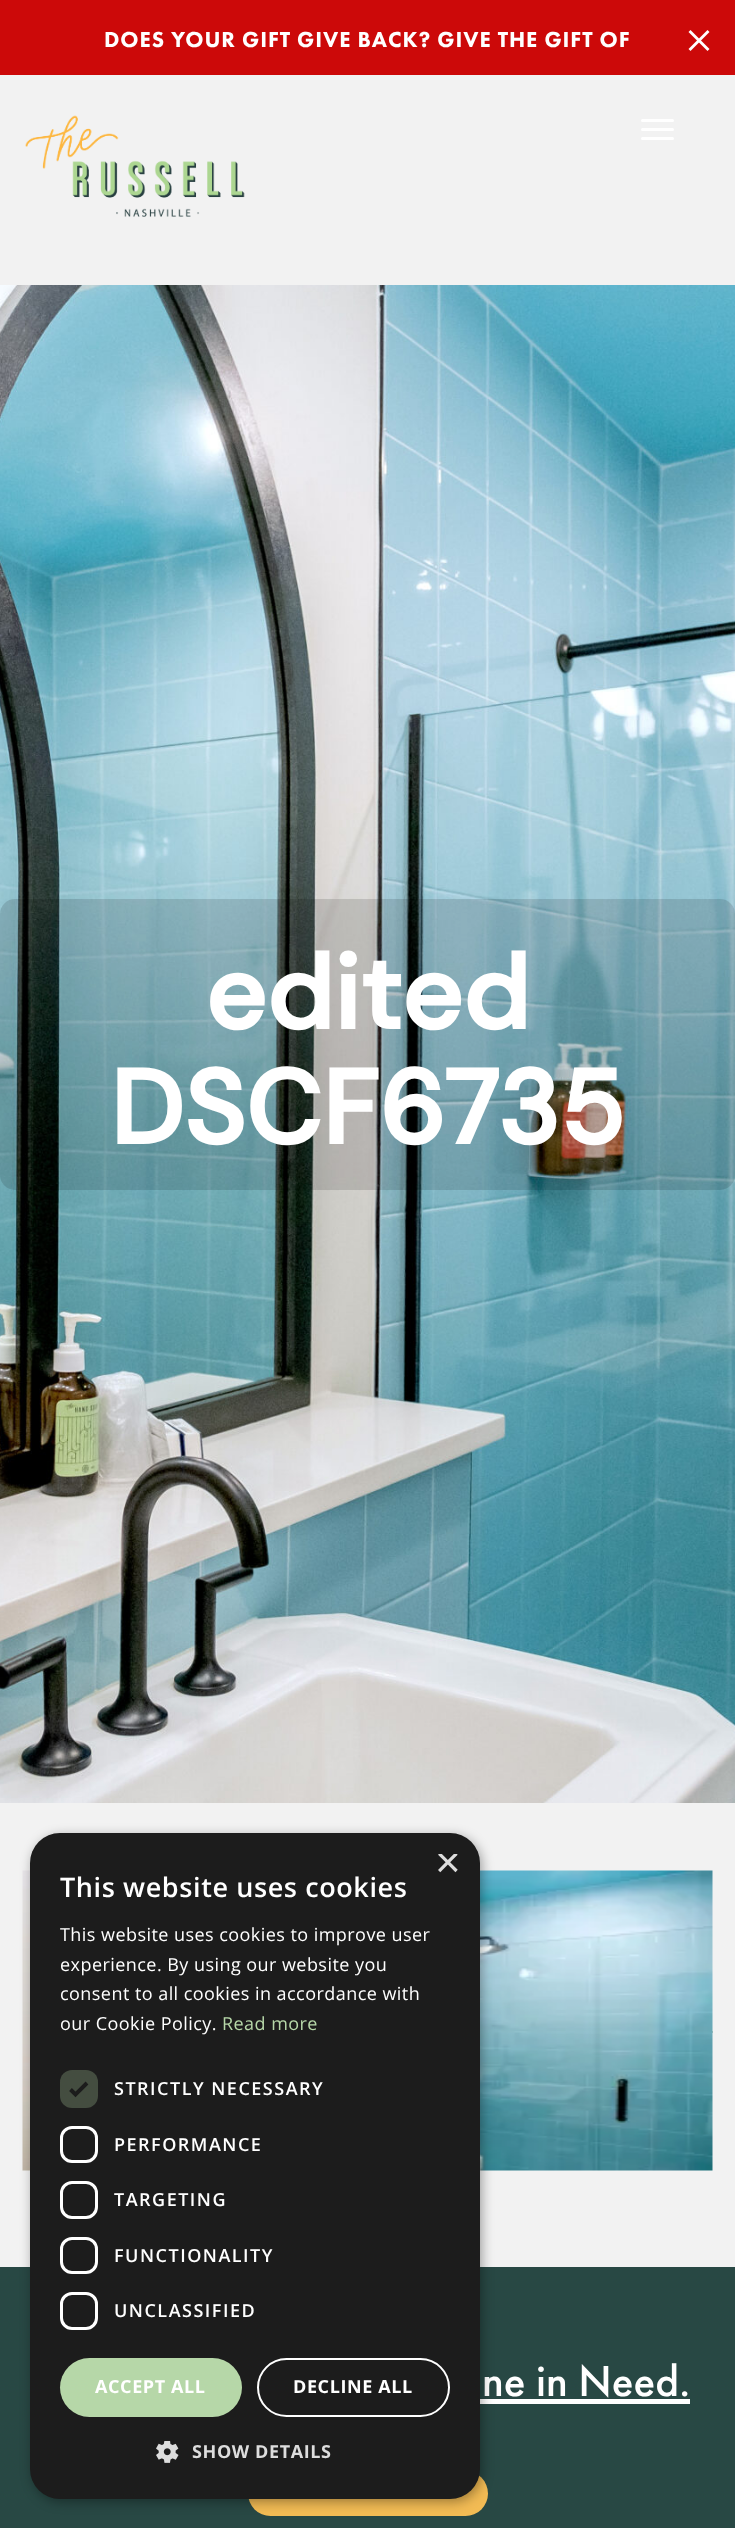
async function draw(canvas) {
  canvas.width = 735
  canvas.height = 2528
  const ctx = canvas.getContext('2d')
  ctx.miterLimit = 4
  ctx.fontKerning = 'normal'
  async function loadImage(src) {
    const img = new Image()
    img.src = src
    await img.decode()
    return img
  }

  ctx.fillStyle = '#f2f2f2'
  ctx.fillRect(0, 0, 735, 2528)
  ctx.fillStyle = '#cc0909'
  ctx.fillRect(0, 0, 735, 75)
  ctx.letterSpacing = '0.9px'
  ctx.font = '900 22.5px Futura PT'
  ctx.fillStyle = '#fff'
  ctx.fillText('DOES YOUR GIFT GIVE BACK? GIVE THE GIFT OF', 104, 47)
  ctx.beginPath()
  ctx.moveTo(690.5, 30)
  ctx.lineTo(709.5, 49)
  ctx.lineTo(707.5, 51)
  ctx.lineTo(688.5, 32)
  ctx.closePath()
  ctx.fill()
  ctx.beginPath()
  ctx.moveTo(688.5, 49)
  ctx.lineTo(707.5, 30)
  ctx.lineTo(709.5, 32)
  ctx.lineTo(690.5, 51)
  ctx.closePath()
  ctx.fill()
  ctx.drawImage(await loadImage('image0.png'), 25, 115, 220, 102)
  ctx.beginPath()
  ctx.roundRect(641, 119, 33, 3, 1.5)
  ctx.fill()
  ctx.beginPath()
  ctx.roundRect(641, 128, 33, 3, 1.5)
  ctx.fill()
  ctx.beginPath()
  ctx.roundRect(641, 137, 33, 3, 1.5)
  ctx.fill()
  ctx.drawImage(await loadImage('image1.png'), 0, 285, 735, 1518)
  ctx.fillStyle = '#00000021'
  ctx.beginPath()
  ctx.roundRect(0, 899, 735, 291, 15)
  ctx.fill()
  ctx.letterSpacing = '0px'
  ctx.font = 'bold 105px DM Sans'
  ctx.fillStyle = '#fff'
  ctx.fillText('edited', 205, 1029)
  ctx.fillText('DSCF6735', 110, 1144)
  ctx.fillStyle = '#abc0b8'
  ctx.fillRect(712, 2031, 1, 2)
  ctx.drawImage(await loadImage('image2.png'), 22, 1870, 691, 301)
  ctx.fillStyle = '#284844'
  ctx.fillRect(0, 2267, 735, 261)
  ctx.font = '500 45px Futura PT'
  ctx.fillStyle = '#fff'
  ctx.fillText('ne in Need.', 482, 2396)
  ctx.fillRect(480, 2399, 210, 5)
  ctx.fillStyle = '#f2bb54'
  ctx.beginPath()
  ctx.roundRect(248, 2471, 240, 45, 22.5)
  ctx.fill()
  ctx.fillStyle = '#00000059'
  ctx.filter = 'blur(6px)'
  ctx.beginPath()
  ctx.roundRect(32, 1836, 450, 666, 30)
  ctx.fill()
  ctx.filter = 'none'
  ctx.fillStyle = '#1c1c1c'
  ctx.beginPath()
  ctx.roundRect(30, 1833, 450, 666, 30)
  ctx.fill()
  ctx.save()
  ctx.beginPath()
  ctx.rect(435, 1854, 23, 23)
  ctx.clip()
  ctx.font = '44px Liberation Sans'
  ctx.fillStyle = '#ddd'
  ctx.fillText('×', 435, 1877)
  ctx.restore()
  ctx.letterSpacing = '0.6px'
  ctx.font = '600 27px Open Sans'
  ctx.fillStyle = '#fff'
  ctx.fillText('This website uses cookies', 60, 1897)
  ctx.letterSpacing = '0.45px'
  ctx.font = '18px Open Sans'
  ctx.fillText('This website uses cookies to improve user', 60, 1941)
  ctx.fillText('experience. By using our website you', 60, 1971)
  ctx.fillText('consent to all cookies in accordance with', 60, 2000)
  ctx.fillText('our Cookie Policy.', 60, 2030)
  ctx.fillStyle = '#b6d7a8'
  ctx.fillText('Read more', 222, 2030)
  ctx.fillStyle = '#444d40'
  ctx.beginPath()
  ctx.roundRect(60, 2070, 38, 38, 12)
  ctx.fill()
  ctx.beginPath()
  ctx.moveTo(70.5, 2089.5)
  ctx.lineTo(75.5, 2094.5)
  ctx.lineTo(87, 2083)
  ctx.strokeStyle = '#1c1c1c'
  ctx.lineWidth = 3.9
  ctx.stroke()
  ctx.letterSpacing = '1.5px'
  ctx.font = '600 18px Open Sans'
  ctx.fillStyle = '#fff'
  ctx.fillText('STRICTLY NECESSARY', 114, 2095)
  ctx.beginPath()
  ctx.roundRect(61.5, 2127.5, 35, 34, 10.5)
  ctx.strokeStyle = '#fff'
  ctx.lineWidth = 3
  ctx.stroke()
  ctx.fillText('PERFORMANCE', 114, 2151)
  ctx.beginPath()
  ctx.roundRect(61.5, 2182.5, 35, 35, 10.5)
  ctx.stroke()
  ctx.fillText('TARGETING', 114, 2206)
  ctx.beginPath()
  ctx.roundRect(61.5, 2238.5, 35, 34, 10.5)
  ctx.stroke()
  ctx.fillText('FUNCTIONALITY', 114, 2262)
  ctx.beginPath()
  ctx.roundRect(61.5, 2293.5, 35, 35, 10.5)
  ctx.stroke()
  ctx.fillText('UNCLASSIFIED', 114, 2317)
  ctx.fillStyle = '#b6d7a8'
  ctx.beginPath()
  ctx.roundRect(60, 2358, 182, 59, 29.5)
  ctx.fill()
  ctx.letterSpacing = '0.6px'
  ctx.font = 'bold 18px Open Sans'
  ctx.fillStyle = '#fff'
  ctx.fillText('ACCEPT ALL', 95, 2393)
  ctx.beginPath()
  ctx.roundRect(258, 2359, 191, 57, 28.5)
  ctx.lineWidth = 2
  ctx.stroke()
  ctx.fillText('DECLINE ALL', 293, 2393)
  ctx.drawImage(await loadImage('image3.png'), 156, 2441, 23, 22)
  ctx.fillStyle = '#ddd'
  ctx.fillText('SHOW DETAILS', 192, 2458)
}

draw(document.querySelector('canvas'))
